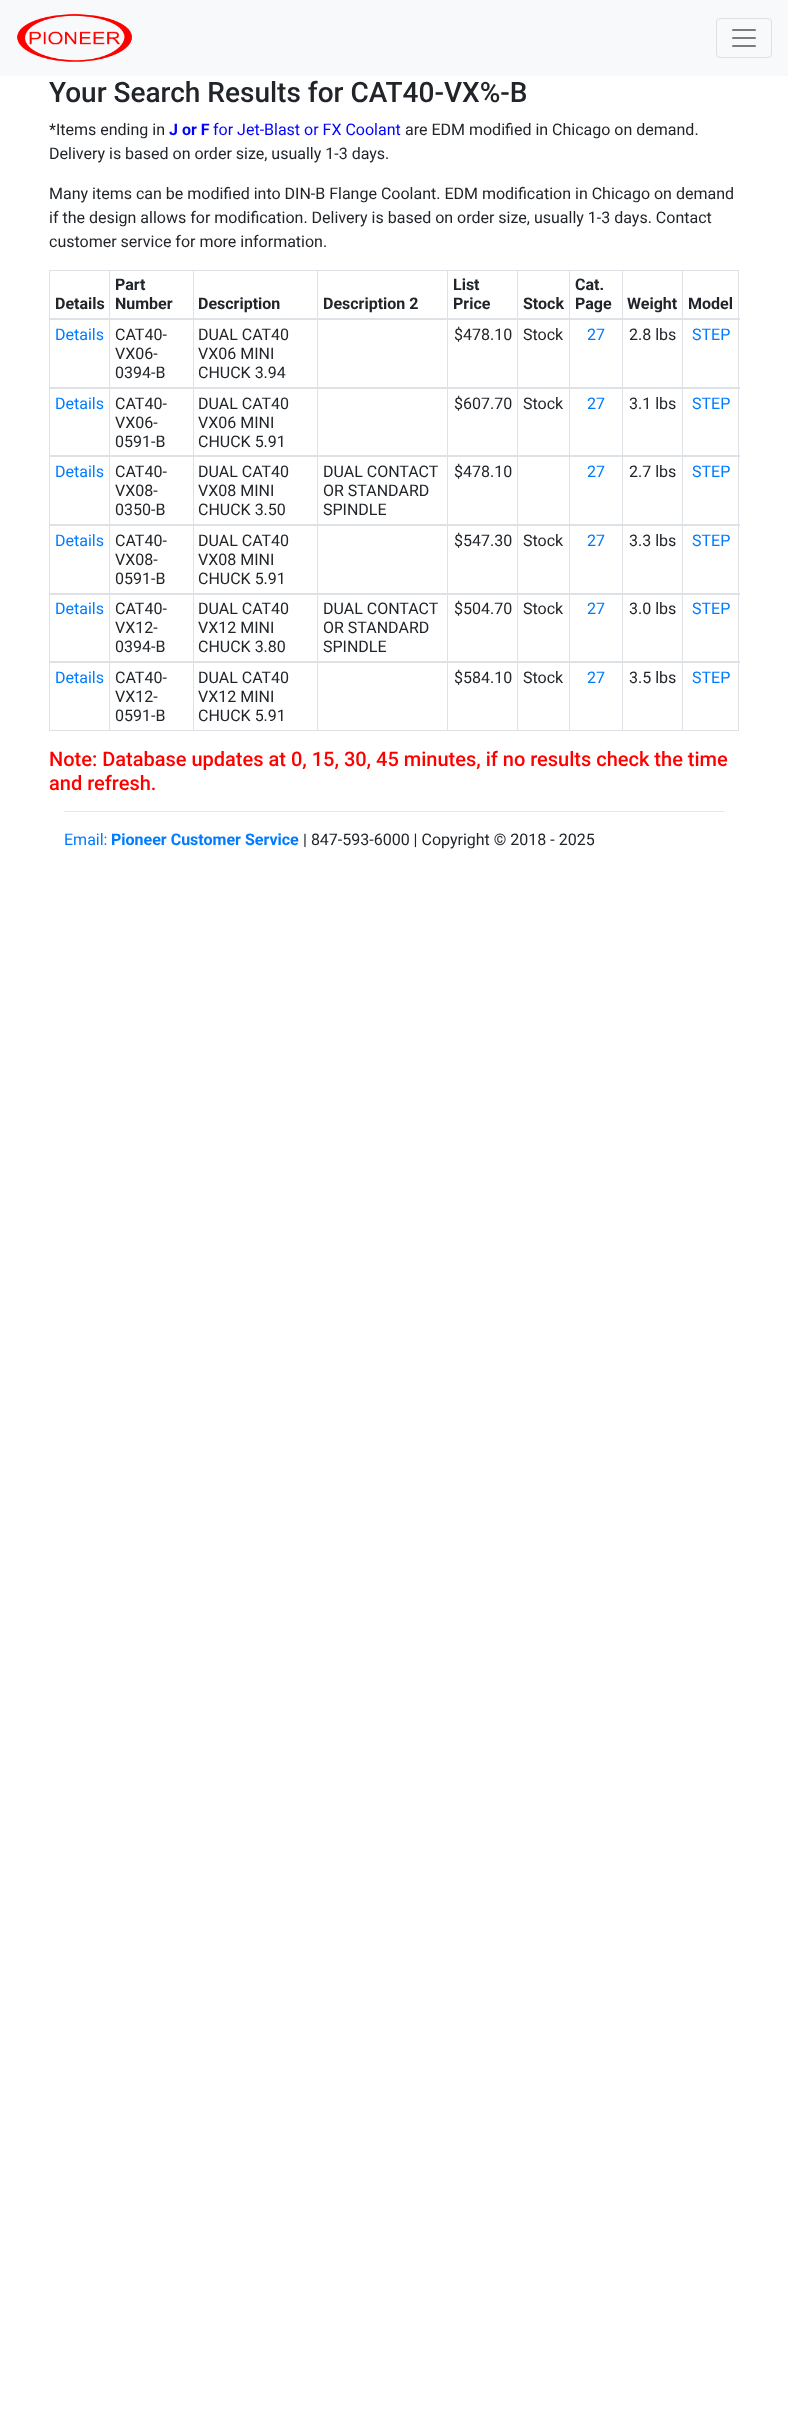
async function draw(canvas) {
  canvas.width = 788
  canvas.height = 2419
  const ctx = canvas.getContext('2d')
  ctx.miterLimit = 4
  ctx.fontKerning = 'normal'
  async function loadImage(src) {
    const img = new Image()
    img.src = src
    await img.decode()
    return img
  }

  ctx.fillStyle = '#fff'
  ctx.fillRect(0, 0, 788, 2419)
  ctx.fillStyle = '#f8f9fa'
  ctx.fillRect(0, 0, 788, 76)
  ctx.drawImage(await loadImage('image0.png'), 17, 14, 115, 48)
  ctx.beginPath()
  ctx.roundRect(716.5, 18.5, 55, 39, 3.5)
  ctx.strokeStyle = '#dfe0e1'
  ctx.stroke()
  ctx.drawImage(await loadImage('image1.png'), 732, 29, 24, 18)
  ctx.font = '500 28px Roboto'
  ctx.fillStyle = '#212529'
  ctx.fillText('Your Search Results for CAT40-VX%-B', 49, 102)
  ctx.font = '16px Roboto'
  ctx.fillText('*Items ending in', 49, 135)
  ctx.font = 'bold 16px Roboto'
  ctx.fillStyle = '#00f'
  ctx.fillText('J or F', 169, 135)
  ctx.font = '16px Roboto'
  ctx.fillText('for Jet-Blast or FX Coolant', 213, 135)
  ctx.fillStyle = '#212529'
  ctx.fillText('are EDM modified in Chicago on demand.', 405, 135)
  ctx.fillText('Delivery is based on order size, usually 1-3 days.', 49, 159)
  ctx.fillText('Many items can be modified into DIN-B Flange Coolant. EDM modification in Chicago on demand', 49, 199)
  ctx.fillText('if the design allows for modification. Delivery is based on order size, usually 1-3 days. Contact', 49, 223)
  ctx.fillText('customer service for more information.', 49, 247)
  ctx.fillStyle = '#dee2e6'
  ctx.fillRect(49, 270, 690, 1)
  ctx.fillRect(738, 270, 1, 461)
  ctx.fillRect(49, 730, 690, 1)
  ctx.fillRect(49, 270, 1, 461)
  ctx.font = 'bold 16px Roboto'
  ctx.fillStyle = '#212529'
  ctx.fillText('Details', 55, 309)
  ctx.fillText('Part', 115, 290)
  ctx.fillText('Number', 115, 309)
  ctx.fillText('Description', 198, 309)
  ctx.fillText('Description 2', 323, 309)
  ctx.fillText('List', 453, 290)
  ctx.fillText('Price', 453, 309)
  ctx.fillText('Stock', 523, 309)
  ctx.fillText('Cat.', 575, 290)
  ctx.fillText('Page', 575, 309)
  ctx.fillText('Weight', 627, 309)
  ctx.fillStyle = '#dee2e6'
  ctx.fillRect(109, 270, 1, 461)
  ctx.fillRect(193, 270, 1, 461)
  ctx.fillRect(317, 270, 1, 461)
  ctx.fillRect(447, 270, 1, 461)
  ctx.fillRect(517, 270, 1, 461)
  ctx.fillRect(569, 270, 1, 461)
  ctx.fillRect(622, 270, 1, 461)
  ctx.fillRect(682, 270, 1, 461)
  ctx.fillRect(49, 318, 691, 2)
  ctx.fillStyle = '#212529'
  ctx.fillText('Model', 688, 309)
  ctx.font = '16px Roboto'
  ctx.fillStyle = '#007bff'
  ctx.fillText('Details', 55, 340)
  ctx.fillStyle = '#212529'
  ctx.fillText('CAT40-', 115, 340)
  ctx.fillText('VX06-', 115, 359)
  ctx.fillText('0394-B', 115, 378)
  ctx.fillText('DUAL CAT40', 198, 340)
  ctx.fillText('VX06 MINI', 198, 359)
  ctx.fillText('CHUCK 3.94', 198, 378)
  ctx.fillText('$478.10', 454, 340)
  ctx.fillText('Stock', 523, 340)
  ctx.fillStyle = '#007bff'
  ctx.fillText('27', 587, 340)
  ctx.fillStyle = '#212529'
  ctx.fillText('2.8 lbs', 629, 340)
  ctx.fillStyle = '#007bff'
  ctx.fillText('STEP', 692, 340)
  ctx.fillStyle = '#dee2e6'
  ctx.fillRect(49, 387, 691, 2)
  ctx.fillStyle = '#007bff'
  ctx.fillText('Details', 55, 409)
  ctx.fillStyle = '#212529'
  ctx.fillText('CAT40-', 115, 409)
  ctx.fillText('VX06-', 115, 428)
  ctx.fillText('0591-B', 115, 447)
  ctx.fillText('DUAL CAT40', 198, 409)
  ctx.fillText('VX06 MINI', 198, 428)
  ctx.fillText('CHUCK 5.91', 198, 447)
  ctx.fillText('$607.70', 454, 409)
  ctx.fillText('Stock', 523, 409)
  ctx.fillStyle = '#007bff'
  ctx.fillText('27', 587, 409)
  ctx.fillStyle = '#212529'
  ctx.fillText('3.1 lbs', 629, 409)
  ctx.fillStyle = '#007bff'
  ctx.fillText('STEP', 692, 409)
  ctx.fillStyle = '#dee2e6'
  ctx.fillRect(49, 455, 691, 2)
  ctx.fillStyle = '#007bff'
  ctx.fillText('Details', 55, 477)
  ctx.fillStyle = '#212529'
  ctx.fillText('CAT40-', 115, 477)
  ctx.fillText('VX08-', 115, 496)
  ctx.fillText('0350-B', 115, 515)
  ctx.fillText('DUAL CAT40', 198, 477)
  ctx.fillText('VX08 MINI', 198, 496)
  ctx.fillText('CHUCK 3.50', 198, 515)
  ctx.fillText('DUAL CONTACT', 323, 477)
  ctx.fillText('OR STANDARD', 323, 496)
  ctx.fillText('SPINDLE', 323, 515)
  ctx.fillText('$478.10', 454, 477)
  ctx.fillStyle = '#007bff'
  ctx.fillText('27', 587, 477)
  ctx.fillStyle = '#212529'
  ctx.fillText('2.7 lbs', 629, 477)
  ctx.fillStyle = '#007bff'
  ctx.fillText('STEP', 692, 477)
  ctx.fillStyle = '#dee2e6'
  ctx.fillRect(49, 524, 691, 2)
  ctx.fillStyle = '#007bff'
  ctx.fillText('Details', 55, 546)
  ctx.fillStyle = '#212529'
  ctx.fillText('CAT40-', 115, 546)
  ctx.fillText('VX08-', 115, 565)
  ctx.fillText('0591-B', 115, 584)
  ctx.fillText('DUAL CAT40', 198, 546)
  ctx.fillText('VX08 MINI', 198, 565)
  ctx.fillText('CHUCK 5.91', 198, 584)
  ctx.fillText('$547.30', 454, 546)
  ctx.fillText('Stock', 523, 546)
  ctx.fillStyle = '#007bff'
  ctx.fillText('27', 587, 546)
  ctx.fillStyle = '#212529'
  ctx.fillText('3.3 lbs', 629, 546)
  ctx.fillStyle = '#007bff'
  ctx.fillText('STEP', 692, 546)
  ctx.fillStyle = '#dee2e6'
  ctx.fillRect(49, 593, 691, 2)
  ctx.fillStyle = '#007bff'
  ctx.fillText('Details', 55, 614)
  ctx.fillStyle = '#212529'
  ctx.fillText('CAT40-', 115, 614)
  ctx.fillText('VX12-', 115, 633)
  ctx.fillText('0394-B', 115, 652)
  ctx.fillText('DUAL CAT40', 198, 614)
  ctx.fillText('VX12 MINI', 198, 633)
  ctx.fillText('CHUCK 3.80', 198, 652)
  ctx.fillText('DUAL CONTACT', 323, 614)
  ctx.fillText('OR STANDARD', 323, 633)
  ctx.fillText('SPINDLE', 323, 652)
  ctx.fillText('$504.70', 454, 614)
  ctx.fillText('Stock', 523, 614)
  ctx.fillStyle = '#007bff'
  ctx.fillText('27', 587, 614)
  ctx.fillStyle = '#212529'
  ctx.fillText('3.0 lbs', 629, 614)
  ctx.fillStyle = '#007bff'
  ctx.fillText('STEP', 692, 614)
  ctx.fillStyle = '#dee2e6'
  ctx.fillRect(49, 661, 691, 2)
  ctx.fillStyle = '#007bff'
  ctx.fillText('Details', 55, 683)
  ctx.fillStyle = '#212529'
  ctx.fillText('CAT40-', 115, 683)
  ctx.fillText('VX12-', 115, 702)
  ctx.fillText('0591-B', 115, 721)
  ctx.fillText('DUAL CAT40', 198, 683)
  ctx.fillText('VX12 MINI', 198, 702)
  ctx.fillText('CHUCK 5.91', 198, 721)
  ctx.fillText('$584.10', 454, 683)
  ctx.fillText('Stock', 523, 683)
  ctx.fillStyle = '#007bff'
  ctx.fillText('27', 587, 683)
  ctx.fillStyle = '#212529'
  ctx.fillText('3.5 lbs', 629, 683)
  ctx.fillStyle = '#007bff'
  ctx.fillText('STEP', 692, 683)
  ctx.font = '500 20px Roboto'
  ctx.fillStyle = '#f00'
  ctx.fillText('Note: Database updates at 0, 15, 30, 45 minutes, if no results check the time', 49, 766)
  ctx.fillText('and refresh.', 49, 790)
  ctx.fillStyle = '#e6e6e6'
  ctx.fillRect(64, 811, 660, 1)
  ctx.font = '16px Roboto'
  ctx.fillStyle = '#007bff'
  ctx.fillText('Email:', 64, 845)
  ctx.font = 'bold 16px Roboto'
  ctx.fillText('Pioneer Customer Service', 111, 845)
  ctx.font = '16px Roboto'
  ctx.fillStyle = '#212529'
  ctx.fillText('| 847-593-6000 | Copyright © 2018 - 2025', 303, 845)
}

draw(document.querySelector('canvas'))
